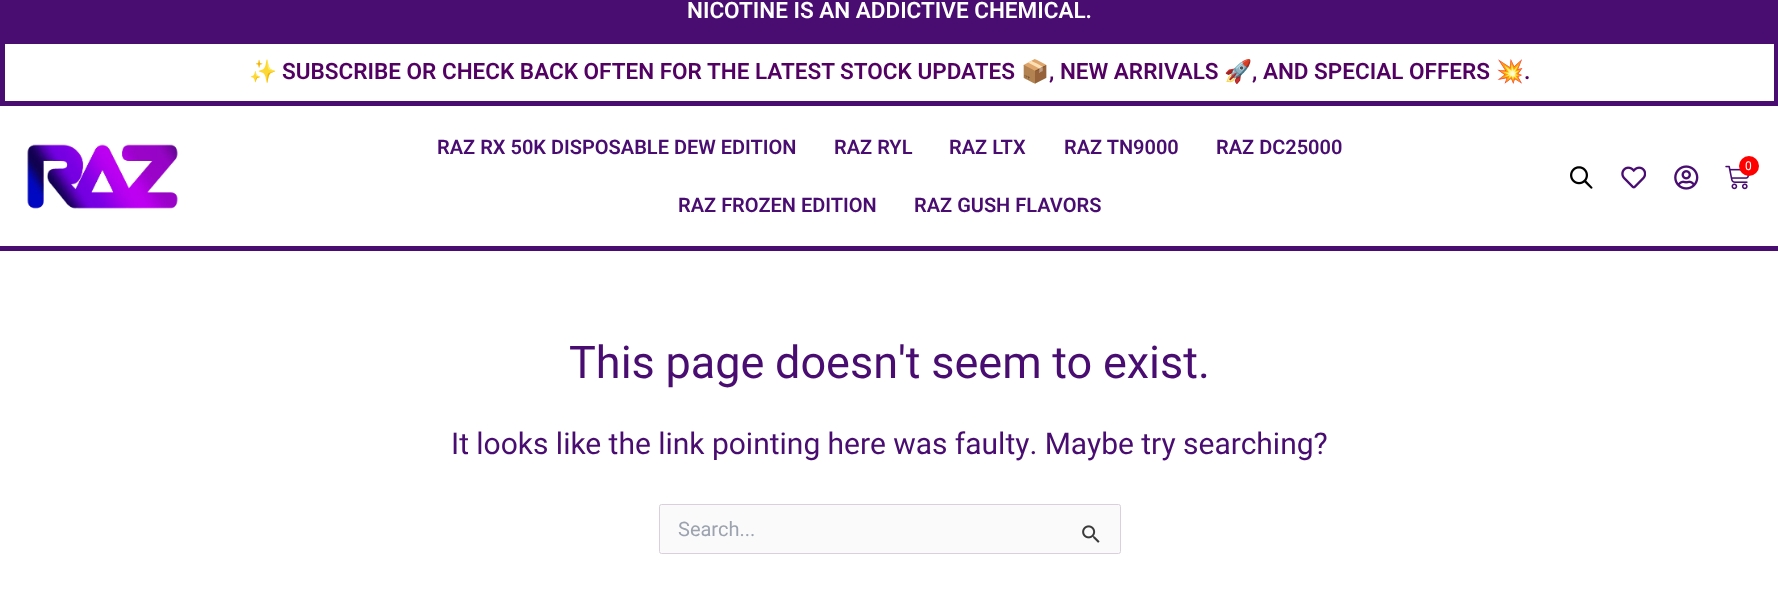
async function draw(canvas) {
  canvas.width = 1778
  canvas.height = 599
  const ctx = canvas.getContext('2d')
  ctx.miterLimit = 4
  ctx.fontKerning = 'normal'
  async function loadImage(src) {
    const img = new Image()
    img.src = src
    await img.decode()
    return img
  }

  ctx.fillStyle = '#fff'
  ctx.fillRect(0, 0, 1778, 599)
  ctx.fillStyle = '#490c70'
  ctx.fillRect(0, 0, 1778, 39)
  ctx.font = '600 22.5px Roboto'
  ctx.fillStyle = '#fff'
  ctx.fillText('NICOTINE IS AN ADDICTIVE CHEMICAL.', 687, 18)
  ctx.strokeStyle = '#490c70'
  ctx.lineWidth = 5
  ctx.strokeRect(2.5, 41.5, 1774, 62)
  ctx.font = 'bold 22.5px Noto Color Emoji'
  ctx.fillStyle = '#530063'
  ctx.fillText('✨', 249, 79)
  ctx.font = '600 22.5px Roboto'
  ctx.fillText('SUBSCRIBE OR CHECK BACK OFTEN FOR THE LATEST STOCK UPDATES', 282, 79)
  ctx.font = 'bold 22.5px Noto Color Emoji'
  ctx.fillText('📦', 1021, 79)
  ctx.font = '600 22.5px Roboto'
  ctx.fillText(', NEW ARRIVALS', 1049, 79)
  ctx.font = 'bold 22.5px Noto Color Emoji'
  ctx.fillText('🚀', 1224, 79)
  ctx.font = '600 22.5px Roboto'
  ctx.fillText(', AND SPECIAL OFFERS', 1252, 79)
  ctx.font = 'bold 22.5px Noto Color Emoji'
  ctx.fillText('💥', 1496, 79)
  ctx.font = '600 22.5px Roboto'
  ctx.fillText('.', 1524, 79)
  ctx.fillStyle = '#490c70'
  ctx.fillRect(0, 246, 1778, 5)
  ctx.drawImage(await loadImage('image0.png'), 27, 144, 151, 65)
  ctx.font = '600 20px Roboto'
  ctx.fillText('RAZ RX 50K DISPOSABLE DEW EDITION', 437, 154)
  ctx.fillText('RAZ RYL', 834, 154)
  ctx.fillText('RAZ LTX', 949, 154)
  ctx.fillText('RAZ TN9000', 1064, 154)
  ctx.fillText('RAZ DC25000', 1216, 154)
  ctx.fillText('RAZ FROZEN EDITION', 678, 212)
  ctx.fillText('RAZ GUSH FLAVORS', 914, 212)
  ctx.drawImage(await loadImage('image1.png'), 1570, 166, 23, 23)
  ctx.drawImage(await loadImage('image2.png'), 1621, 166, 25, 23)
  ctx.drawImage(await loadImage('image3.png'), 1674, 165, 25, 25)
  ctx.drawImage(await loadImage('image4.png'), 1725, 165, 25, 25)
  ctx.fillStyle = '#f00'
  ctx.beginPath()
  ctx.arc(1749, 166, 10, 0, 2 * Math.PI)
  ctx.fill()
  ctx.font = '12px Roboto'
  ctx.fillStyle = '#fff'
  ctx.fillText('0', 1745, 170)
  ctx.wordSpacing = '-0.5px'
  ctx.font = '45px Roboto'
  ctx.fillStyle = '#490c70'
  ctx.fillText('This page doesn\'t seem to exist.', 569, 378)
  ctx.wordSpacing = '-0.1px'
  ctx.font = '30px Roboto'
  ctx.fillText('It looks like the link pointing here was faulty. Maybe try searching?', 451, 454)
  ctx.fillStyle = '#fafafa'
  ctx.beginPath()
  ctx.roundRect(659.5, 504.5, 461, 49, 2)
  ctx.fill()
  ctx.strokeStyle = '#d9d0db'
  ctx.lineWidth = 1
  ctx.stroke()
  ctx.wordSpacing = '0px'
  ctx.font = '20px Roboto'
  ctx.fillStyle = '#9ca3af'
  ctx.fillText('Search...', 678, 536)
  ctx.drawImage(await loadImage('image5.png'), 1082, 525, 18, 18)
}

draw(document.querySelector('canvas'))
